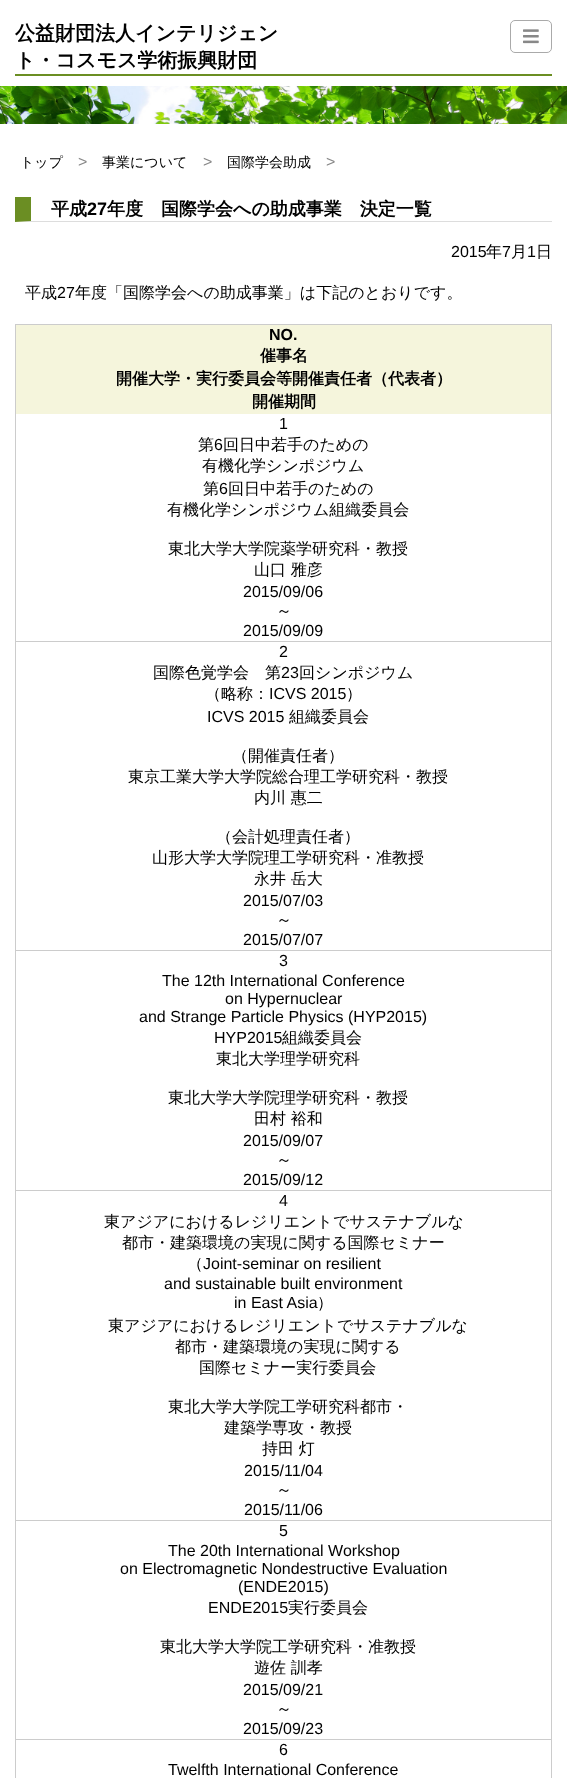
async function draw(canvas) {
  canvas.width = 567
  canvas.height = 1778
  const ctx = canvas.getContext('2d')
  ctx.miterLimit = 4
  ctx.fontKerning = 'normal'
  async function loadImage(src) {
    const img = new Image()
    img.src = src
    await img.decode()
    return img
  }

  ctx.fillStyle = '#fff'
  ctx.fillRect(0, 0, 567, 1778)
  ctx.fillStyle = '#6b8e23'
  ctx.fillRect(15, 74, 537, 2)
  ctx.beginPath()
  ctx.roundRect(510.5, 20.5, 41, 32, 4.5)
  ctx.strokeStyle = '#aaa'
  ctx.stroke()
  ctx.drawImage(await loadImage('image0.png'), 523, 29, 16, 15)
  ctx.font = 'bold 20px WenQuanYi Zen Hei'
  ctx.fillStyle = '#000'
  ctx.fillText('公益財団法人インテリジェン', 15, 40)
  ctx.fillText('ト・コスモス学術振興財団', 15, 67)
  ctx.drawImage(await loadImage('image1.png'), 0, 86, 567, 38)
  ctx.font = '500 14px WenQuanYi Zen Hei'
  ctx.fillText('トップ', 20, 167)
  ctx.font = '16px Liberation Sans'
  ctx.fillStyle = '#888'
  ctx.fillText('>', 78, 167)
  ctx.font = '500 14px WenQuanYi Zen Hei'
  ctx.fillStyle = '#000'
  ctx.fillText('事業について', 102, 167)
  ctx.font = '16px Liberation Sans'
  ctx.fillStyle = '#888'
  ctx.fillText('>', 203, 167)
  ctx.font = '500 14px WenQuanYi Zen Hei'
  ctx.fillStyle = '#000'
  ctx.fillText('国際学会助成', 227, 167)
  ctx.font = '16px Liberation Sans'
  ctx.fillStyle = '#888'
  ctx.fillText('>', 326, 167)
  ctx.fillStyle = '#ddd'
  ctx.beginPath()
  ctx.moveTo(552, 222)
  ctx.lineTo(15, 222)
  ctx.lineTo(31, 221)
  ctx.lineTo(552, 221)
  ctx.closePath()
  ctx.fill()
  ctx.fillStyle = '#6b8e23'
  ctx.beginPath()
  ctx.moveTo(15, 222)
  ctx.lineTo(15, 197)
  ctx.lineTo(31, 197)
  ctx.lineTo(31, 221)
  ctx.closePath()
  ctx.fill()
  ctx.font = 'bold 18px WenQuanYi Zen Hei'
  ctx.fillStyle = '#000'
  ctx.fillText('平成', 51, 215)
  ctx.font = 'bold 18px Liberation Sans'
  ctx.fillText('27', 87, 215)
  ctx.font = 'bold 18px WenQuanYi Zen Hei'
  ctx.fillText('年度　国際学会への助成事業　決定一覧', 107, 215)
  ctx.font = '16px Liberation Sans'
  ctx.fillText('2015', 451, 257)
  ctx.font = '500 16px WenQuanYi Zen Hei'
  ctx.fillText('年', 486, 257)
  ctx.font = '16px Liberation Sans'
  ctx.fillText('7', 502, 257)
  ctx.font = '500 16px WenQuanYi Zen Hei'
  ctx.fillText('月', 511, 257)
  ctx.font = '16px Liberation Sans'
  ctx.fillText('1', 527, 257)
  ctx.font = '500 16px WenQuanYi Zen Hei'
  ctx.fillText('日', 536, 257)
  ctx.fillText('平成', 25, 298)
  ctx.font = '16px Liberation Sans'
  ctx.fillText('27', 57, 298)
  ctx.font = '500 16px WenQuanYi Zen Hei'
  ctx.fillText('年度「国際学会への助成事業」は下記のとおりです。', 75, 298)
  ctx.fillStyle = '#ccc'
  ctx.fillRect(15, 324, 537, 1)
  ctx.fillRect(551, 324, 1, 1454)
  ctx.fillRect(15, 324, 1, 1454)
  ctx.fillStyle = '#f5f5dc'
  ctx.fillRect(16, 325, 535, 89)
  ctx.font = 'bold 16px Liberation Sans'
  ctx.fillStyle = '#000'
  ctx.fillText('NO.', 269, 340)
  ctx.font = 'bold 16px WenQuanYi Zen Hei'
  ctx.fillText('催事名', 260, 361)
  ctx.fillText('開催大学・実行委員会等開催責任者（代表者）', 116, 384)
  ctx.fillText('開催期間', 252, 407)
  ctx.font = '16px Liberation Sans'
  ctx.fillText('1', 279, 429)
  ctx.font = '500 16px WenQuanYi Zen Hei'
  ctx.fillText('第', 198, 450)
  ctx.font = '16px Liberation Sans'
  ctx.fillText('6', 214, 450)
  ctx.font = '500 16px WenQuanYi Zen Hei'
  ctx.fillText('回日中若手のための', 223, 450)
  ctx.fillText('有機化学シンポジウム', 202, 471)
  ctx.fillText('第', 203, 494)
  ctx.font = '16px Liberation Sans'
  ctx.fillText('6', 219, 494)
  ctx.font = '500 16px WenQuanYi Zen Hei'
  ctx.fillText('回日中若手のための', 228, 494)
  ctx.fillText('有機化学シンポジウム組織委員会', 167, 515)
  ctx.fillText('東北大学大学院薬学研究科・教授', 168, 554)
  ctx.fillText('山口 雅彦', 254, 575)
  ctx.fillStyle = '#ccc'
  ctx.fillRect(16, 641, 535, 1)
  ctx.font = '16px Liberation Sans'
  ctx.fillStyle = '#000'
  ctx.fillText('2015/09/06', 243, 597)
  ctx.font = '500 16px WenQuanYi Zen Hei'
  ctx.fillText('～', 276, 616)
  ctx.font = '16px Liberation Sans'
  ctx.fillText('2015/09/09', 243, 636)
  ctx.fillText('2', 279, 657)
  ctx.font = '500 16px WenQuanYi Zen Hei'
  ctx.fillText('国際色覚学会　第', 153, 678)
  ctx.font = '16px Liberation Sans'
  ctx.fillText('23', 281, 678)
  ctx.font = '500 16px WenQuanYi Zen Hei'
  ctx.fillText('回シンポジウム', 299, 678)
  ctx.fillText('（略称：', 205, 699)
  ctx.font = '16px Liberation Sans'
  ctx.fillText('ICVS 2015', 269, 699)
  ctx.font = '500 16px WenQuanYi Zen Hei'
  ctx.fillText('）', 346, 699)
  ctx.font = '16px Liberation Sans'
  ctx.fillText('ICVS 2015', 207, 722)
  ctx.font = '500 16px WenQuanYi Zen Hei'
  ctx.fillText('組織委員会', 289, 722)
  ctx.fillText('（開催責任者）', 232, 761)
  ctx.fillText('東京工業大学大学院総合理工学研究科・教授', 128, 782)
  ctx.fillText('内川 惠二', 254, 803)
  ctx.fillText('（会計処理責任者）', 216, 842)
  ctx.fillText('山形大学大学院理工学研究科・准教授', 152, 863)
  ctx.fillText('永井 岳大', 254, 884)
  ctx.fillStyle = '#ccc'
  ctx.fillRect(16, 950, 535, 1)
  ctx.font = '16px Liberation Sans'
  ctx.fillStyle = '#000'
  ctx.fillText('2015/07/03', 243, 906)
  ctx.font = '500 16px WenQuanYi Zen Hei'
  ctx.fillText('～', 276, 925)
  ctx.font = '16px Liberation Sans'
  ctx.fillText('2015/07/07', 243, 945)
  ctx.fillText('3', 279, 966)
  ctx.fillText('The 12th International Conference', 162, 986)
  ctx.fillText('on Hypernuclear', 225, 1004)
  ctx.fillText('and Strange Particle Physics (HYP2015)', 139, 1022)
  ctx.fillText('HYP2015', 214, 1043)
  ctx.font = '500 16px WenQuanYi Zen Hei'
  ctx.fillText('組織委員会', 282, 1043)
  ctx.fillText('東北大学理学研究科', 216, 1064)
  ctx.fillText('東北大学大学院理学研究科・教授', 168, 1103)
  ctx.fillText('田村 裕和', 254, 1124)
  ctx.fillStyle = '#ccc'
  ctx.fillRect(16, 1190, 535, 1)
  ctx.font = '16px Liberation Sans'
  ctx.fillStyle = '#000'
  ctx.fillText('2015/09/07', 243, 1146)
  ctx.font = '500 16px WenQuanYi Zen Hei'
  ctx.fillText('～', 276, 1165)
  ctx.font = '16px Liberation Sans'
  ctx.fillText('2015/09/12', 243, 1185)
  ctx.fillText('4', 279, 1206)
  ctx.font = '500 16px WenQuanYi Zen Hei'
  ctx.fillText('東アジアにおけるレジリエントでサステナブルな', 104, 1227)
  ctx.fillText('都市・建築環境の実現に関する国際セミナー', 122, 1248)
  ctx.fillText('（', 187, 1269)
  ctx.font = '16px Liberation Sans'
  ctx.fillText('Joint-seminar on resilient', 203, 1269)
  ctx.fillText('and sustainable built environment', 164, 1289)
  ctx.fillText('in East Asia', 234, 1308)
  ctx.font = '500 16px WenQuanYi Zen Hei'
  ctx.fillText('）', 317, 1308)
  ctx.fillText('東アジアにおけるレジリエントでサステナブルな', 108, 1331)
  ctx.fillText('都市・建築環境の実現に関する', 175, 1352)
  ctx.fillText('国際セミナー実行委員会', 199, 1373)
  ctx.fillText('東北大学大学院工学研究科都市・', 168, 1412)
  ctx.fillText('建築学専攻・教授', 224, 1433)
  ctx.fillText('持田 灯', 262, 1454)
  ctx.fillStyle = '#ccc'
  ctx.fillRect(16, 1520, 535, 1)
  ctx.font = '16px Liberation Sans'
  ctx.fillStyle = '#000'
  ctx.fillText('2015/11/04', 244, 1476)
  ctx.font = '500 16px WenQuanYi Zen Hei'
  ctx.fillText('～', 276, 1495)
  ctx.font = '16px Liberation Sans'
  ctx.fillText('2015/11/06', 244, 1515)
  ctx.fillText('5', 279, 1536)
  ctx.fillText('The 20th International Workshop', 168, 1556)
  ctx.fillText('on Electromagnetic Nondestructive Evaluation', 120, 1574)
  ctx.fillText('(ENDE2015)', 238, 1592)
  ctx.fillText('ENDE2015', 208, 1613)
  ctx.font = '500 16px WenQuanYi Zen Hei'
  ctx.fillText('実行委員会', 288, 1613)
  ctx.fillText('東北大学大学院工学研究科・准教授', 160, 1652)
  ctx.fillText('遊佐 訓孝', 254, 1673)
  ctx.fillStyle = '#ccc'
  ctx.fillRect(16, 1739, 535, 1)
  ctx.font = '16px Liberation Sans'
  ctx.fillStyle = '#000'
  ctx.fillText('2015/09/21', 243, 1695)
  ctx.font = '500 16px WenQuanYi Zen Hei'
  ctx.fillText('～', 276, 1714)
  ctx.font = '16px Liberation Sans'
  ctx.fillText('2015/09/23', 243, 1734)
  ctx.fillText('6', 279, 1755)
  ctx.fillText('Twelfth International Conference', 168, 1775)
}

draw(document.querySelector('canvas'))
